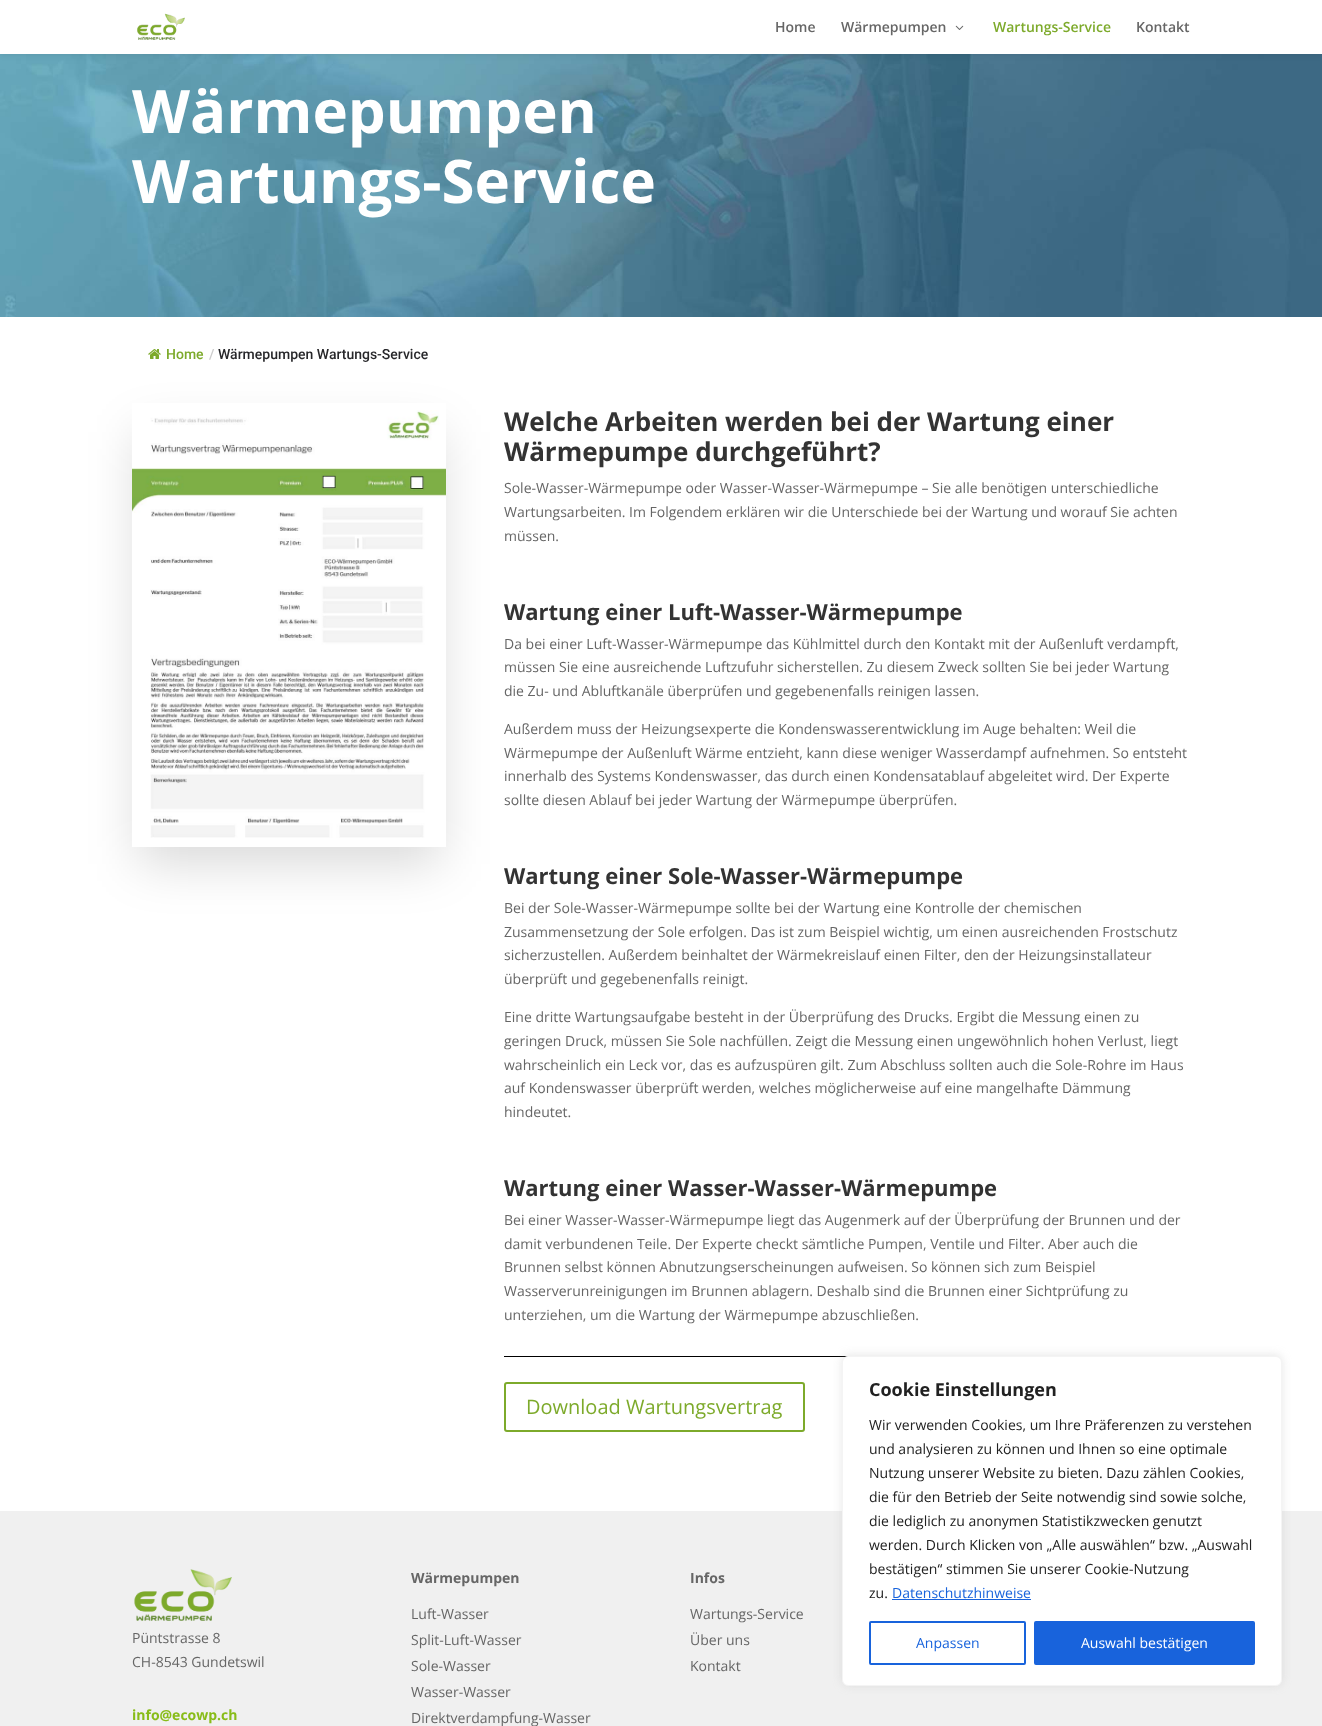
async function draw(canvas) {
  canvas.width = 1322
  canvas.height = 1726
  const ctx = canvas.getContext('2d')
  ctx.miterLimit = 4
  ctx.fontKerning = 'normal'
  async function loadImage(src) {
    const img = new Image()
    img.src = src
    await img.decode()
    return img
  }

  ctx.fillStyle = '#fff'
  ctx.fillRect(0, 0, 1322, 1726)
  ctx.drawImage(await loadImage('image2.png'), 0, 54, 1322, 263)
  ctx.fillStyle = '#0000001a'
  ctx.filter = 'blur(3.5px)'
  ctx.beginPath()
  ctx.rect(0, 0, 1322, 54)
  ctx.fill()
  ctx.filter = 'none'
  ctx.fillStyle = '#fff'
  ctx.fillRect(0, 0, 1322, 54)
  ctx.drawImage(await loadImage('image0.png'), 137, 13, 48, 27)
  ctx.font = '600 14px Open Sans'
  ctx.fillStyle = '#666'
  ctx.fillText('Home', 775, 32)
  ctx.fillText('Wärmepumpen', 841, 32)
  ctx.drawImage(await loadImage('image1.png'), 955, 25, 9, 5)
  ctx.fillStyle = '#7daa2b'
  ctx.fillText('Wartungs-Service', 993, 32)
  ctx.fillStyle = '#666'
  ctx.fillText('Kontakt', 1136, 32)
  ctx.font = 'bold 60px Open Sans'
  ctx.fillStyle = '#fff'
  ctx.fillText('Wärmepumpen', 132, 133)
  ctx.fillText('Wartungs-Service', 132, 203)
  ctx.drawImage(await loadImage('image3.png'), 148, 349, 13, 10)
  ctx.font = '500 14px Roboto'
  ctx.fillStyle = '#7daa2b'
  ctx.fillText('Home', 166, 359)
  ctx.fillStyle = '#ccc'
  ctx.fillText('/', 209, 359)
  ctx.fillStyle = '#27272a'
  ctx.fillText('Wärmepumpen Wartungs-Service', 218, 359)
  ctx.save()
  ctx.beginPath()
  ctx.moveTo(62, 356)
  ctx.lineTo(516, 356)
  ctx.lineTo(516, 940)
  ctx.lineTo(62, 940)
  ctx.closePath()
  ctx.moveTo(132, 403)
  ctx.lineTo(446, 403)
  ctx.lineTo(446, 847)
  ctx.lineTo(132, 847)
  ctx.closePath()
  ctx.clip('evenodd')
  ctx.fillStyle = '#00000026'
  ctx.filter = 'blur(25px)'
  ctx.beginPath()
  ctx.rect(138, 432, 302, 432)
  ctx.fill()
  ctx.filter = 'none'
  ctx.restore()
  ctx.drawImage(await loadImage('image4.png'), 132, 410, 314, 428)
  ctx.font = 'bold 26px Open Sans'
  ctx.fillStyle = '#333'
  ctx.fillText('Welche Arbeiten werden bei der Wartung einer', 504, 431)
  ctx.fillText('Wärmepumpe durchgeführt?', 504, 461)
  ctx.font = '14px Open Sans'
  ctx.fillStyle = '#666'
  ctx.fillText('Sole-Wasser-Wärmepumpe oder Wasser-Wasser-Wärmepumpe – Sie alle benötigen unterschiedliche', 504, 493)
  ctx.fillText('Wartungsarbeiten. Im Folgendem erklären wir die Unterschiede bei der Wartung und worauf Sie achten', 504, 517)
  ctx.fillText('müssen.', 504, 541)
  ctx.font = 'bold 22px Open Sans'
  ctx.fillStyle = '#333'
  ctx.fillText('Wartung einer Luft-Wasser-Wärmepumpe', 504, 620)
  ctx.font = '14px Open Sans'
  ctx.fillStyle = '#666'
  ctx.fillText('Da bei einer Luft-Wasser-Wärmepumpe das Kühlmittel durch den Kontakt mit der Außenluft verdampft,', 504, 649)
  ctx.fillText('müssen Sie eine ausreichende Luftzufuhr sicherstellen. Zu diesem Zweck sollten Sie bei jeder Wartung', 504, 672)
  ctx.fillText('die Zu- und Abluftkanäle überprüfen und gegebenenfalls reinigen lassen.', 504, 696)
  ctx.fillText('Außerdem muss der Heizungsexperte die Kondenswasserentwicklung im Auge behalten: Weil die', 504, 734)
  ctx.fillText('Wärmepumpe der Außenluft Wärme entzieht, kann diese weniger Wasserdampf aufnehmen. So entsteht', 504, 758)
  ctx.fillText('innerhalb des Systems Kondenswasser, das durch einen Kondensatablauf abgeleitet wird. Der Experte', 504, 781)
  ctx.fillText('sollte diesen Ablauf bei jeder Wartung der Wärmepumpe überprüfen.', 504, 805)
  ctx.font = 'bold 22px Open Sans'
  ctx.fillStyle = '#333'
  ctx.fillText('Wartung einer Sole-Wasser-Wärmepumpe', 504, 884)
  ctx.font = '14px Open Sans'
  ctx.fillStyle = '#666'
  ctx.fillText('Bei der Sole-Wasser-Wärmepumpe sollte bei der Wartung eine Kontrolle der chemischen', 504, 913)
  ctx.fillText('Zusammensetzung der Sole erfolgen. Das ist zum Beispiel wichtig, um einen ausreichenden Frostschutz', 504, 937)
  ctx.fillText('sicherzustellen. Außerdem beinhaltet der Wärmekreislauf einen Filter, den der Heizungsinstallateur', 504, 960)
  ctx.fillText('überprüft und gegebenenfalls reinigt.', 504, 984)
  ctx.fillText('Eine dritte Wartungsaufgabe besteht in der Überprüfung des Drucks. Ergibt die Messung einen zu', 504, 1022)
  ctx.fillText('geringen Druck, müssen Sie Sole nachfüllen. Zeigt die Messung einen ungewöhnlich hohen Verlust, liegt', 504, 1046)
  ctx.fillText('wahrscheinlich ein Leck vor, das es aufzuspüren gilt. Zum Abschluss sollten auch die Sole-Rohre im Haus', 504, 1070)
  ctx.fillText('auf Kondenswasser überprüft werden, welches möglicherweise auf eine mangelhafte Dämmung', 504, 1093)
  ctx.fillText('hindeutet.', 504, 1117)
  ctx.font = 'bold 22px Open Sans'
  ctx.fillStyle = '#333'
  ctx.fillText('Wartung einer Wasser-Wasser-Wärmepumpe', 504, 1196)
  ctx.font = '14px Open Sans'
  ctx.fillStyle = '#666'
  ctx.fillText('Bei einer Wasser-Wasser-Wärmepumpe liegt das Augenmerk auf der Überprüfung der Brunnen und der', 504, 1225)
  ctx.fillText('damit verbundenen Teile. Der Experte checkt sämtliche Pumpen, Ventile und Filter. Aber auch die', 504, 1249)
  ctx.fillText('Brunnen selbst können Abnutzungserscheinungen aufweisen. So können sich zum Beispiel', 504, 1272)
  ctx.fillText('Wasserverunreinigungen im Brunnen ablagern. Deshalb sind die Brunnen einer Sichtprüfung zu', 504, 1296)
  ctx.fillText('unterziehen, um die Wartung der Wärmepumpe abzuschließen.', 504, 1320)
  ctx.fillStyle = '#000'
  ctx.fillRect(504, 1356, 344, 1)
  ctx.beginPath()
  ctx.roundRect(505, 1383, 299, 48, 2)
  ctx.strokeStyle = '#7daa2b'
  ctx.lineWidth = 2
  ctx.stroke()
  ctx.font = '20px Open Sans'
  ctx.fillStyle = '#7daa2b'
  ctx.fillText('Download Wartungsvertrag', 526, 1414)
  ctx.fillStyle = '#f0f0f0'
  ctx.fillRect(0, 1511, 1322, 215)
  ctx.drawImage(await loadImage('image5.png'), 134, 1569, 98, 52)
  ctx.font = '14px Open Sans'
  ctx.fillStyle = '#666'
  ctx.fillText('Püntstrasse 8', 132, 1643)
  ctx.fillText('CH-8543 Gundetswil', 132, 1667)
  ctx.font = 'bold 14px Open Sans'
  ctx.fillStyle = '#88bc18'
  ctx.fillText('info@ecowp.ch', 132, 1720)
  ctx.fillStyle = '#666'
  ctx.fillText('Wärmepumpen', 411, 1583)
  ctx.font = '14px Open Sans'
  ctx.fillText('Luft-Wasser', 411, 1619)
  ctx.fillText('Split-Luft-Wasser', 411, 1645)
  ctx.fillText('Sole-Wasser', 411, 1671)
  ctx.fillText('Wasser-Wasser', 411, 1697)
  ctx.fillText('Direktverdampfung-Wasser', 411, 1723)
  ctx.font = 'bold 14px Open Sans'
  ctx.fillText('Infos', 690, 1583)
  ctx.font = '14px Open Sans'
  ctx.fillText('Wartungs-Service', 690, 1619)
  ctx.fillText('Über uns', 690, 1645)
  ctx.fillText('Kontakt', 690, 1671)
  ctx.fillStyle = '#acabab4d'
  ctx.filter = 'blur(5px)'
  ctx.beginPath()
  ctx.roundRect(842, 1355, 440, 330, 6)
  ctx.fill()
  ctx.filter = 'none'
  ctx.fillStyle = '#fff'
  ctx.beginPath()
  ctx.roundRect(842.5, 1356.5, 439, 329, 5.5)
  ctx.fill()
  ctx.strokeStyle = '#f4f4f4'
  ctx.lineWidth = 1
  ctx.stroke()
  ctx.font = 'bold 18px Open Sans'
  ctx.fillStyle = '#212121'
  ctx.fillText('Cookie Einstellungen', 869, 1396)
  ctx.font = '14px Open Sans'
  ctx.fillText('Wir verwenden Cookies, um Ihre Präferenzen zu verstehen', 869, 1430)
  ctx.fillText('und analysieren zu können und Ihnen so eine optimale', 869, 1454)
  ctx.fillText('Nutzung unserer Website zu bieten. Dazu zählen Cookies,', 869, 1478)
  ctx.fillText('die für den Betrieb der Seite notwendig sind sowie solche,', 869, 1502)
  ctx.fillText('die lediglich zu anonymen Statistikzwecken genutzt', 869, 1526)
  ctx.fillText('werden. Durch Klicken von „Alle auswählen“ bzw. „Auswahl', 869, 1550)
  ctx.fillText('bestätigen“ stimmen Sie unserer Cookie-Nutzung', 869, 1574)
  ctx.fillText('zu.', 869, 1598)
  ctx.fillStyle = '#1863dc'
  ctx.fillText('Datenschutzhinweise', 892, 1598)
  ctx.fillRect(892, 1599, 139, 1)
  ctx.beginPath()
  ctx.roundRect(870, 1622, 155, 42, 1)
  ctx.strokeStyle = '#1863dc'
  ctx.lineWidth = 2
  ctx.stroke()
  ctx.fillText('Anpassen', 916, 1648)
  ctx.beginPath()
  ctx.roundRect(1035, 1622, 219, 42, 1)
  ctx.fill()
  ctx.stroke()
  ctx.fillStyle = '#fff'
  ctx.fillText('Auswahl bestätigen', 1081, 1648)
}

draw(document.querySelector('canvas'))
